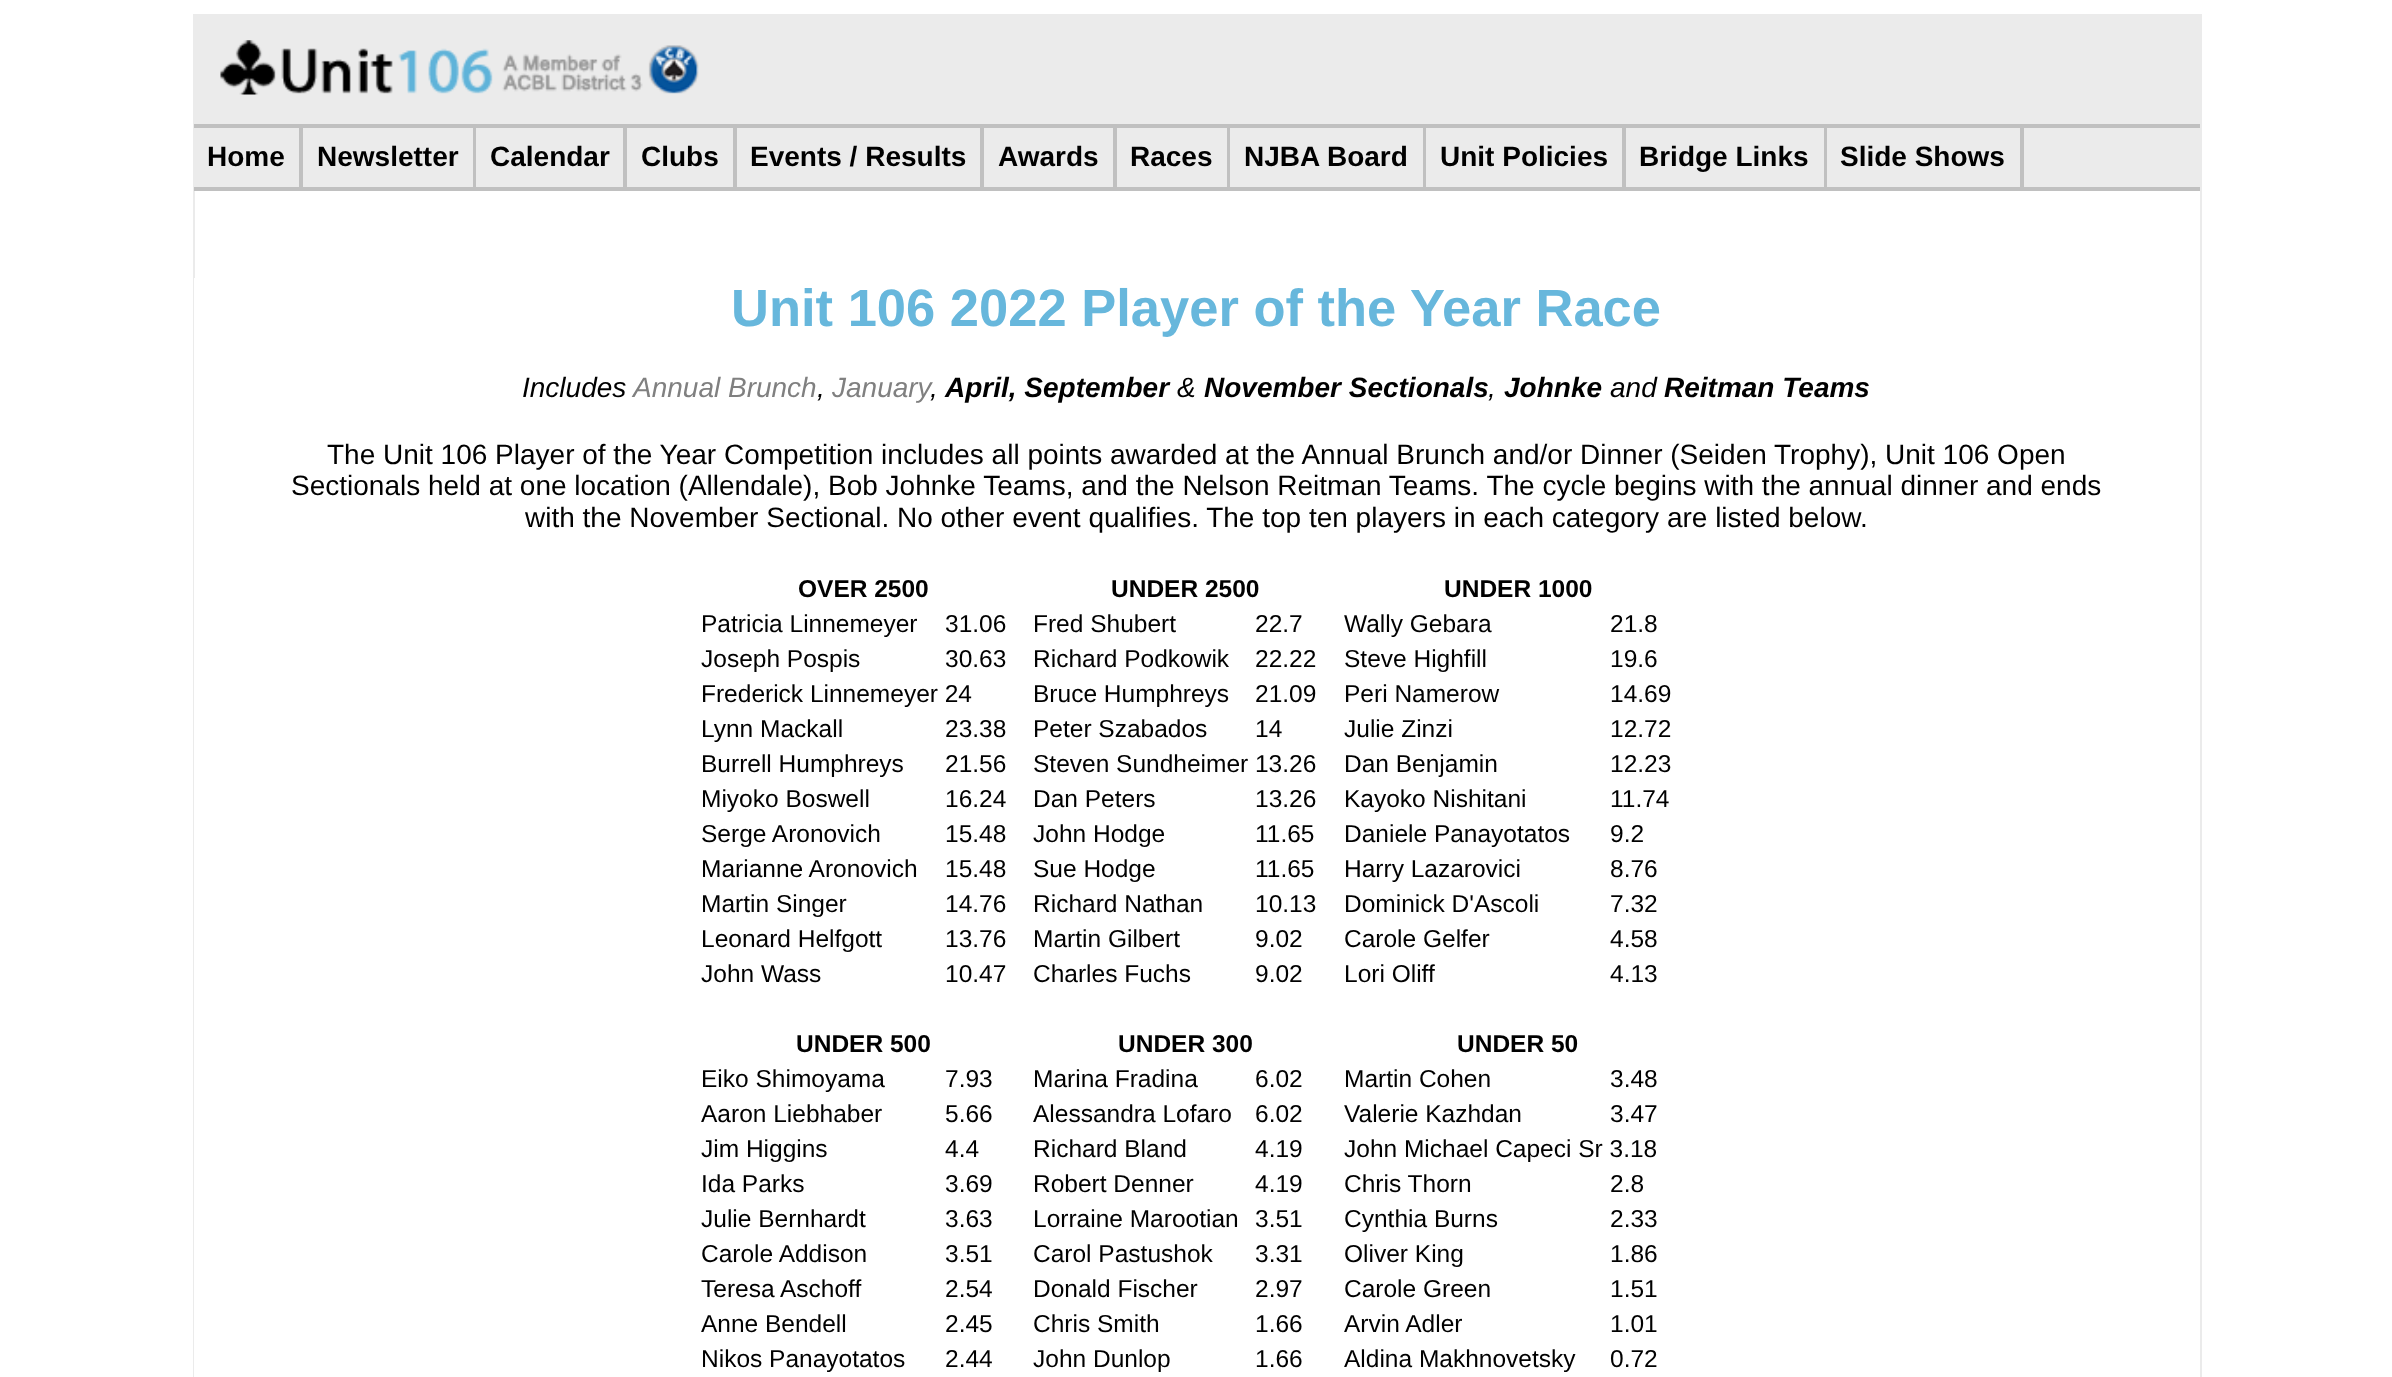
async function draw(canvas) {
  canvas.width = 2392
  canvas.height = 1377
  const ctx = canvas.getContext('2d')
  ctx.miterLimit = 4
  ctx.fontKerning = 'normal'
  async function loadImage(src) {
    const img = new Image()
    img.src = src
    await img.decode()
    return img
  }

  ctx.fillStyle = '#fff'
  ctx.fillRect(0, 0, 2392, 1377)
  ctx.fillStyle = '#ebebeb'
  ctx.fillRect(2200, 14, 2, 1363)
  ctx.fillRect(193, 14, 2, 1363)
  ctx.fillRect(195, 14, 2005, 110)
  ctx.drawImage(await loadImage('image0.png'), 220, 40, 479, 55)
  ctx.fillStyle = '#c0c0c0'
  ctx.fillRect(194, 124, 2006, 4)
  ctx.fillRect(194, 187, 2006, 4)
  ctx.fillStyle = '#ebebeb'
  ctx.fillRect(195, 128, 2005, 59)
  ctx.fillStyle = '#c0c0c0'
  ctx.fillRect(299, 128, 4, 59)
  ctx.font = 'bold 28px Liberation Sans'
  ctx.fillStyle = '#000'
  ctx.fillText('Home', 207, 166)
  ctx.fillStyle = '#c0c0c0'
  ctx.fillRect(473, 128, 3, 59)
  ctx.fillStyle = '#000'
  ctx.fillText('Newsletter', 317, 166)
  ctx.fillStyle = '#c0c0c0'
  ctx.fillRect(623, 128, 4, 59)
  ctx.fillStyle = '#000'
  ctx.fillText('Calendar', 490, 166)
  ctx.fillStyle = '#c0c0c0'
  ctx.fillRect(733, 128, 4, 59)
  ctx.fillStyle = '#000'
  ctx.fillText('Clubs', 641, 166)
  ctx.fillStyle = '#c0c0c0'
  ctx.fillRect(980, 128, 4, 59)
  ctx.fillStyle = '#000'
  ctx.fillText('Events / Results', 750, 166)
  ctx.fillStyle = '#c0c0c0'
  ctx.fillRect(1113, 128, 4, 59)
  ctx.fillStyle = '#000'
  ctx.fillText('Awards', 998, 166)
  ctx.fillStyle = '#c0c0c0'
  ctx.fillRect(1227, 128, 3, 59)
  ctx.fillStyle = '#000'
  ctx.fillText('Races', 1130, 166)
  ctx.fillStyle = '#c0c0c0'
  ctx.fillRect(1423, 128, 3, 59)
  ctx.fillStyle = '#000'
  ctx.fillText('NJBA Board', 1244, 166)
  ctx.fillStyle = '#c0c0c0'
  ctx.fillRect(1622, 128, 4, 59)
  ctx.fillStyle = '#000'
  ctx.fillText('Unit Policies', 1440, 166)
  ctx.fillStyle = '#c0c0c0'
  ctx.fillRect(1824, 128, 3, 59)
  ctx.fillStyle = '#000'
  ctx.fillText('Bridge Links', 1639, 166)
  ctx.fillStyle = '#c0c0c0'
  ctx.fillRect(2020, 128, 4, 59)
  ctx.fillStyle = '#000'
  ctx.fillText('Slide Shows', 1840, 166)
  ctx.fillStyle = '#fff'
  ctx.fillRect(194, 278, 1, 1099)
  ctx.font = 'bold 52.5px Liberation Sans'
  ctx.fillStyle = '#67b7dc'
  ctx.fillText('Unit 106 2022 Player of the Year Race', 731, 326)
  ctx.font = 'italic 28px Liberation Sans'
  ctx.fillStyle = '#000'
  ctx.fillText('Includes', 522, 397)
  ctx.fillStyle = '#808080'
  ctx.fillText('Annual Brunch', 633, 397)
  ctx.fillStyle = '#000'
  ctx.fillText(',', 817, 397)
  ctx.fillStyle = '#808080'
  ctx.fillText('January', 832, 397)
  ctx.font = 'italic bold 28px Liberation Sans'
  ctx.fillStyle = '#000'
  ctx.fillText('April, September', 945, 397)
  ctx.font = 'italic 28px Liberation Sans'
  ctx.fillText('&', 1177, 397)
  ctx.font = 'italic bold 28px Liberation Sans'
  ctx.fillText('November Sectionals', 1204, 397)
  ctx.fillText('Johnke', 1504, 397)
  ctx.font = 'italic 28px Liberation Sans'
  ctx.fillText('and', 1610, 397)
  ctx.font = 'italic bold 28px Liberation Sans'
  ctx.fillText('Reitman Teams', 1664, 397)
  ctx.font = 'italic 28px Liberation Sans'
  ctx.fillText(',', 930, 397)
  ctx.fillText(',', 1488, 397)
  ctx.font = '28px Liberation Sans'
  ctx.fillText('The Unit 106 Player of the Year Competition includes all points awarded at the Annual Brunch and/or Dinner (Seiden Trophy), Unit 106 Open', 327, 464)
  ctx.fillText('Sectionals held at one location (Allendale), Bob Johnke Teams, and the Nelson Reitman Teams. The cycle begins with the annual dinner and ends', 291, 495)
  ctx.fillText('with the November Sectional. No other event qualifies. The top ten players in each category are listed below.', 525, 527)
  ctx.font = 'bold 24.5px Liberation Sans'
  ctx.fillText('OVER 2500', 798, 597)
  ctx.fillText('UNDER 2500', 1111, 597)
  ctx.fillText('UNDER 1000', 1444, 597)
  ctx.font = '24.5px Liberation Sans'
  ctx.fillText('Patricia Linnemeyer', 701, 632)
  ctx.fillText('31.06', 945, 632)
  ctx.fillText('Fred Shubert', 1033, 632)
  ctx.fillText('22.7', 1255, 632)
  ctx.fillText('Wally Gebara', 1344, 632)
  ctx.fillText('21.8', 1610, 632)
  ctx.fillText('Joseph Pospis', 701, 667)
  ctx.fillText('30.63', 945, 667)
  ctx.fillText('Richard Podkowik', 1033, 667)
  ctx.fillText('22.22', 1255, 667)
  ctx.fillText('Steve Highfill', 1344, 667)
  ctx.fillText('19.6', 1610, 667)
  ctx.fillText('Frederick Linnemeyer 24', 701, 702)
  ctx.fillText('Bruce Humphreys', 1033, 702)
  ctx.fillText('21.09', 1255, 702)
  ctx.fillText('Peri Namerow', 1344, 702)
  ctx.fillText('14.69', 1610, 702)
  ctx.fillText('Lynn Mackall', 701, 737)
  ctx.fillText('23.38', 945, 737)
  ctx.fillText('Peter Szabados', 1033, 737)
  ctx.fillText('14', 1255, 737)
  ctx.fillText('Julie Zinzi', 1344, 737)
  ctx.fillText('12.72', 1610, 737)
  ctx.fillText('Burrell Humphreys', 701, 772)
  ctx.fillText('21.56', 945, 772)
  ctx.fillText('Steven Sundheimer 13.26', 1033, 772)
  ctx.fillText('Dan Benjamin', 1344, 772)
  ctx.fillText('12.23', 1610, 772)
  ctx.fillText('Miyoko Boswell', 701, 807)
  ctx.fillText('16.24', 945, 807)
  ctx.fillText('Dan Peters', 1033, 807)
  ctx.fillText('13.26', 1255, 807)
  ctx.fillText('Kayoko Nishitani', 1344, 807)
  ctx.fillText('11.74', 1610, 807)
  ctx.fillText('Serge Aronovich', 701, 842)
  ctx.fillText('15.48', 945, 842)
  ctx.fillText('John Hodge', 1033, 842)
  ctx.fillText('11.65', 1255, 842)
  ctx.fillText('Daniele Panayotatos', 1344, 842)
  ctx.fillText('9.2', 1610, 842)
  ctx.fillText('Marianne Aronovich', 701, 877)
  ctx.fillText('15.48', 945, 877)
  ctx.fillText('Sue Hodge', 1033, 877)
  ctx.fillText('11.65', 1255, 877)
  ctx.fillText('Harry Lazarovici', 1344, 877)
  ctx.fillText('8.76', 1610, 877)
  ctx.fillText('Martin Singer', 701, 912)
  ctx.fillText('14.76', 945, 912)
  ctx.fillText('Richard Nathan', 1033, 912)
  ctx.fillText('10.13', 1255, 912)
  ctx.fillText('Dominick D\'Ascoli', 1344, 912)
  ctx.fillText('7.32', 1610, 912)
  ctx.fillText('Leonard Helfgott', 701, 947)
  ctx.fillText('13.76', 945, 947)
  ctx.fillText('Martin Gilbert', 1033, 947)
  ctx.fillText('9.02', 1255, 947)
  ctx.fillText('Carole Gelfer', 1344, 947)
  ctx.fillText('4.58', 1610, 947)
  ctx.fillText('John Wass', 701, 982)
  ctx.fillText('10.47', 945, 982)
  ctx.fillText('Charles Fuchs', 1033, 982)
  ctx.fillText('9.02', 1255, 982)
  ctx.fillText('Lori Oliff', 1344, 982)
  ctx.fillText('4.13', 1610, 982)
  ctx.font = 'bold 24.5px Liberation Sans'
  ctx.fillText('UNDER 500', 796, 1052)
  ctx.fillText('UNDER 300', 1118, 1052)
  ctx.fillText('UNDER 50', 1457, 1052)
  ctx.font = '24.5px Liberation Sans'
  ctx.fillText('Eiko Shimoyama', 701, 1087)
  ctx.fillText('7.93', 945, 1087)
  ctx.fillText('Marina Fradina', 1033, 1087)
  ctx.fillText('6.02', 1255, 1087)
  ctx.fillText('Martin Cohen', 1344, 1087)
  ctx.fillText('3.48', 1610, 1087)
  ctx.fillText('Aaron Liebhaber', 701, 1122)
  ctx.fillText('5.66', 945, 1122)
  ctx.fillText('Alessandra Lofaro', 1033, 1122)
  ctx.fillText('6.02', 1255, 1122)
  ctx.fillText('Valerie Kazhdan', 1344, 1122)
  ctx.fillText('3.47', 1610, 1122)
  ctx.fillText('Jim Higgins', 701, 1157)
  ctx.fillText('4.4', 945, 1157)
  ctx.fillText('Richard Bland', 1033, 1157)
  ctx.fillText('4.19', 1255, 1157)
  ctx.fillText('John Michael Capeci Sr 3.18', 1344, 1157)
  ctx.fillText('Ida Parks', 701, 1192)
  ctx.fillText('3.69', 945, 1192)
  ctx.fillText('Robert Denner', 1033, 1192)
  ctx.fillText('4.19', 1255, 1192)
  ctx.fillText('Chris Thorn', 1344, 1192)
  ctx.fillText('2.8', 1610, 1192)
  ctx.fillText('Julie Bernhardt', 701, 1227)
  ctx.fillText('3.63', 945, 1227)
  ctx.fillText('Lorraine Marootian', 1033, 1227)
  ctx.fillText('3.51', 1255, 1227)
  ctx.fillText('Cynthia Burns', 1344, 1227)
  ctx.fillText('2.33', 1610, 1227)
  ctx.fillText('Carole Addison', 701, 1262)
  ctx.fillText('3.51', 945, 1262)
  ctx.fillText('Carol Pastushok', 1033, 1262)
  ctx.fillText('3.31', 1255, 1262)
  ctx.fillText('Oliver King', 1344, 1262)
  ctx.fillText('1.86', 1610, 1262)
  ctx.fillText('Teresa Aschoff', 701, 1297)
  ctx.fillText('2.54', 945, 1297)
  ctx.fillText('Donald Fischer', 1033, 1297)
  ctx.fillText('2.97', 1255, 1297)
  ctx.fillText('Carole Green', 1344, 1297)
  ctx.fillText('1.51', 1610, 1297)
  ctx.fillText('Anne Bendell', 701, 1332)
  ctx.fillText('2.45', 945, 1332)
  ctx.fillText('Chris Smith', 1033, 1332)
  ctx.fillText('1.66', 1255, 1332)
  ctx.fillText('Arvin Adler', 1344, 1332)
  ctx.fillText('1.01', 1610, 1332)
  ctx.fillText('Nikos Panayotatos', 701, 1367)
  ctx.fillText('2.44', 945, 1367)
  ctx.fillText('John Dunlop', 1033, 1367)
  ctx.fillText('1.66', 1255, 1367)
  ctx.fillText('Aldina Makhnovetsky', 1344, 1367)
  ctx.fillText('0.72', 1610, 1367)
}

draw(document.querySelector('canvas'))
